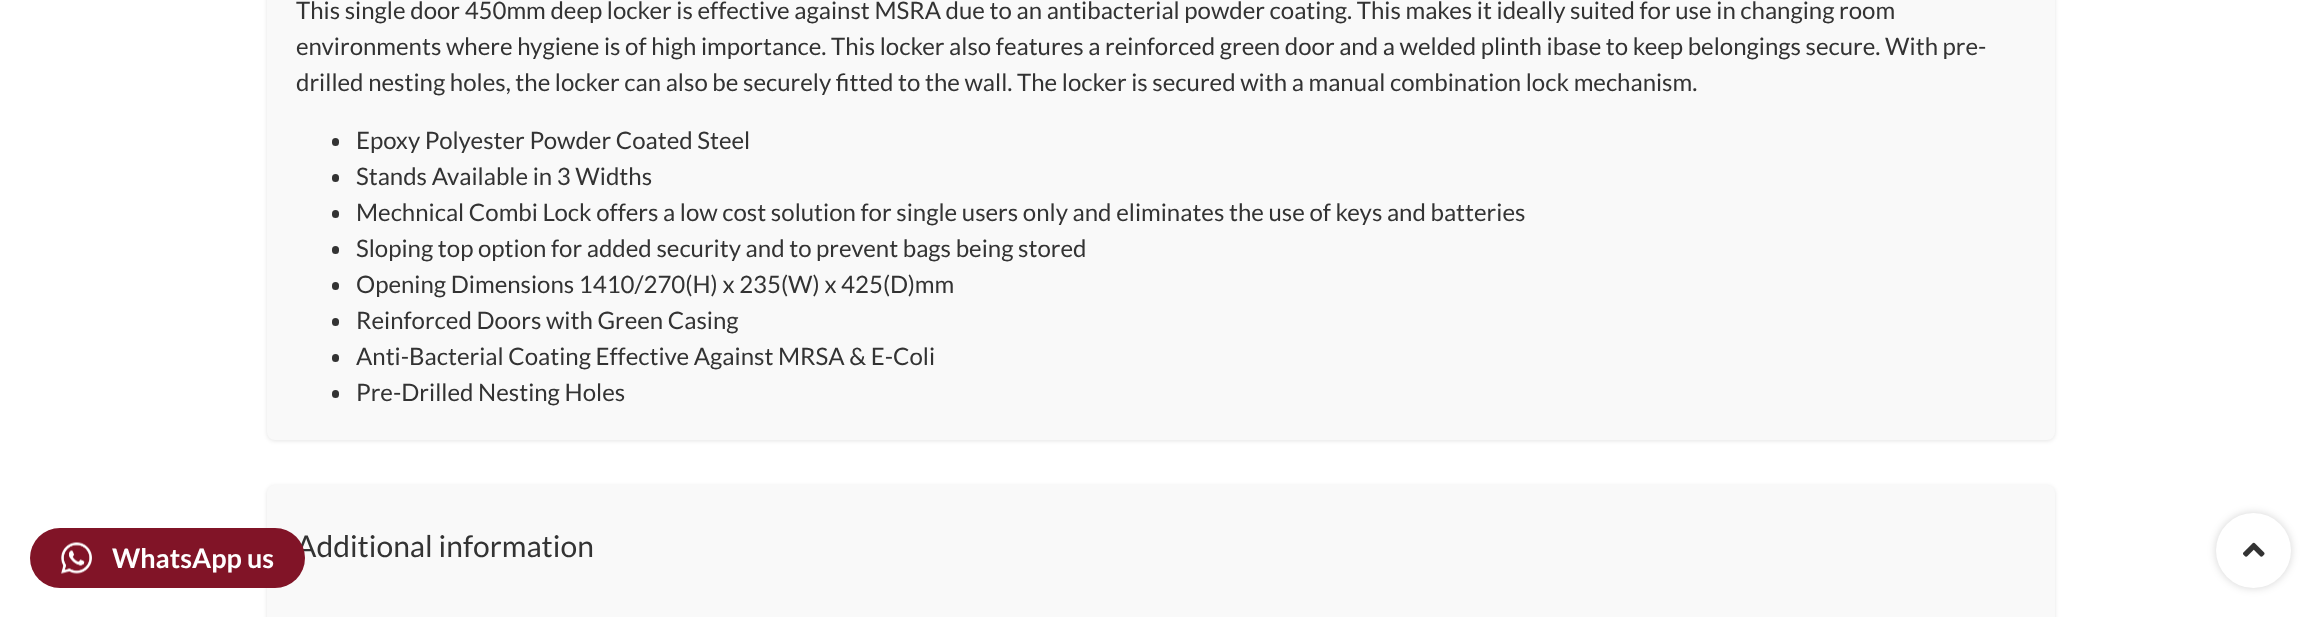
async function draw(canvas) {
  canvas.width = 2320
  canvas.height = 617
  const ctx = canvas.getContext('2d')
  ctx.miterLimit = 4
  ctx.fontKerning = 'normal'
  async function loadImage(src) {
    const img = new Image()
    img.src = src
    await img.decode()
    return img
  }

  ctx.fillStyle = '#fff'
  ctx.fillRect(0, 0, 2320, 617)
  ctx.fillStyle = '#0000001a'
  ctx.filter = 'blur(2px)'
  ctx.beginPath()
  ctx.roundRect(267, 486, 1788, 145, 8)
  ctx.fill()
  ctx.filter = 'none'
  ctx.fillStyle = '#f9f9f9'
  ctx.beginPath()
  ctx.roundRect(267, 485, 1788, 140, 8)
  ctx.fill()
  ctx.font = '30px Lato'
  ctx.fillStyle = '#333'
  ctx.fillText('Additional information', 296, 557)
  ctx.fillStyle = '#811427'
  ctx.beginPath()
  ctx.roundRect(30, 528, 275, 60, 30)
  ctx.fill()
  ctx.drawImage(await loadImage('image0.png'), 61, 542, 31, 32)
  ctx.font = 'bold 27px Lato'
  ctx.fillStyle = '#fff'
  ctx.fillText('WhatsApp us', 112, 568)
  ctx.fillStyle = '#0000002b'
  ctx.filter = 'blur(4px)'
  ctx.beginPath()
  ctx.roundRect(2216, 513, 75, 75, 37.5)
  ctx.fill()
  ctx.filter = 'none'
  ctx.fillStyle = '#fff'
  ctx.beginPath()
  ctx.arc(2253.5, 550.5, 37.5, 0, 2 * Math.PI)
  ctx.fill()
  ctx.drawImage(await loadImage('image1.png'), 2243, 542, 22, 15)
  ctx.fillStyle = '#0000001a'
  ctx.filter = 'blur(2px)'
  ctx.beginPath()
  ctx.roundRect(267, -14, 1788, 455, 8)
  ctx.fill()
  ctx.filter = 'none'
  ctx.fillStyle = '#f9f9f9'
  ctx.beginPath()
  ctx.roundRect(267, -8, 1788, 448, 8)
  ctx.fill()
  ctx.font = '24px Lato'
  ctx.fillStyle = '#333'
  ctx.fillText('This single door 450mm deep locker is effective against MSRA due to an antibacterial powder coating. This makes it ideally suited for use in changing room', 296, 19)
  ctx.fillText('environments where hygiene is of high importance. This locker also features a reinforced green door and a welded plinth ibase to keep belongings secure. With pre-', 296, 55)
  ctx.fillText('drilled nesting holes, the locker can also be securely fitted to the wall. The locker is secured with a manual combination lock mechanism.', 296, 91)
  ctx.beginPath()
  ctx.roundRect(332, 138, 7, 8, 3.5)
  ctx.fill()
  ctx.fillText('Epoxy Polyester Powder Coated Steel', 356, 149)
  ctx.beginPath()
  ctx.roundRect(332, 174, 7, 8, 3.5)
  ctx.fill()
  ctx.fillText('Stands Available in 3 Widths', 356, 185)
  ctx.beginPath()
  ctx.roundRect(332, 210, 7, 8, 3.5)
  ctx.fill()
  ctx.fillText('Mechnical Combi Lock offers a low cost solution for single users only and eliminates the use of keys and batteries', 356, 221)
  ctx.beginPath()
  ctx.roundRect(332, 246, 7, 8, 3.5)
  ctx.fill()
  ctx.fillText('Sloping top option for added security and to prevent bags being stored', 356, 257)
  ctx.beginPath()
  ctx.roundRect(332, 282, 7, 8, 3.5)
  ctx.fill()
  ctx.fillText('Opening Dimensions 1410/270(H) x 235(W) x 425(D)mm', 356, 293)
  ctx.beginPath()
  ctx.roundRect(332, 318, 7, 8, 3.5)
  ctx.fill()
  ctx.fillText('Reinforced Doors with Green Casing', 356, 329)
  ctx.beginPath()
  ctx.roundRect(332, 354, 7, 8, 3.5)
  ctx.fill()
  ctx.fillText('Anti-Bacterial Coating Effective Against MRSA & E-Coli', 356, 365)
  ctx.beginPath()
  ctx.roundRect(332, 390, 7, 8, 3.5)
  ctx.fill()
  ctx.fillText('Pre-Drilled Nesting Holes', 356, 401)
}

draw(document.querySelector('canvas'))
